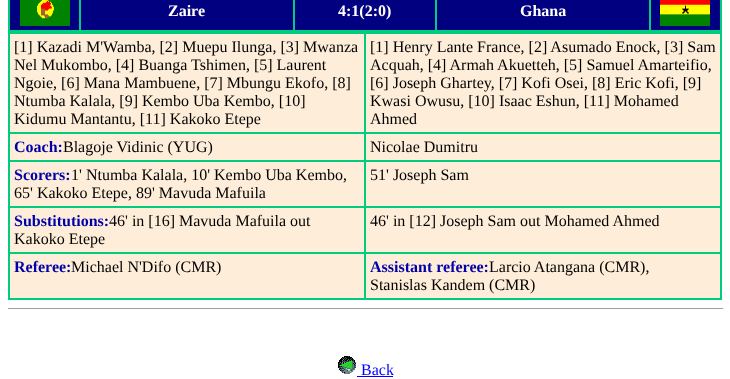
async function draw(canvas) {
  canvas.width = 730
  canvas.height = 379
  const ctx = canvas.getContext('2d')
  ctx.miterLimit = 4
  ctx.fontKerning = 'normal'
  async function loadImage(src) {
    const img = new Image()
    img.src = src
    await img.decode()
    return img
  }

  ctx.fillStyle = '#fff'
  ctx.fillRect(0, 0, 730, 379)
  ctx.fillStyle = '#000080'
  ctx.fillRect(10, 0, 710, 30)
  ctx.strokeStyle = '#00cc80'
  ctx.strokeRect(8.5, -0.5, 713, 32)
  ctx.strokeRect(9.5, -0.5, 70, 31)
  ctx.drawImage(await loadImage('image0.png'), 20, 0, 50, 26)
  ctx.strokeRect(80.5, -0.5, 213, 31)
  ctx.font = 'bold 16px Liberation Serif'
  ctx.fillStyle = '#fff'
  ctx.fillText('Zaire', 168, 16)
  ctx.strokeRect(294.5, -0.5, 141, 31)
  ctx.fillText('4:1(2:0)', 338, 16)
  ctx.strokeRect(436.5, -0.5, 213, 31)
  ctx.fillText('Ghana', 520, 16)
  ctx.strokeRect(650.5, -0.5, 70, 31)
  ctx.drawImage(await loadImage('image1.png'), 660, 0, 50, 26)
  ctx.fillStyle = '#feeed9'
  ctx.fillRect(10, 34, 710, 264)
  ctx.strokeRect(8.5, 32.5, 713, 267)
  ctx.strokeRect(9.5, 33.5, 355, 99)
  ctx.font = '16px Liberation Serif'
  ctx.fillStyle = '#000'
  ctx.fillText('[1] Kazadi M\'Wamba, [2] Muepu Ilunga, [3] Mwanza', 14, 52)
  ctx.fillText('Nel Mukombo, [4] Buanga Tshimen, [5] Laurent', 14, 70)
  ctx.fillText('Ngoie, [6] Mana Mambuene, [7] Mbungu Ekofo, [8]', 14, 88)
  ctx.fillText('Ntumba Kalala, [9] Kembo Uba Kembo, [10]', 14, 106)
  ctx.fillText('Kidumu Mantantu, [11] Kakoko Etepe', 14, 124)
  ctx.strokeRect(365.5, 33.5, 355, 99)
  ctx.fillText('[1] Henry Lante France, [2] Asumado Enock, [3] Sam', 370, 52)
  ctx.fillText('Acquah, [4] Armah Akuetteh, [5] Samuel Amarteifio,', 370, 70)
  ctx.fillText('[6] Joseph Ghartey, [7] Kofi Osei, [8] Eric Kofi, [9]', 370, 88)
  ctx.fillText('Kwasi Owusu, [10] Isaac Eshun, [11] Mohamed', 370, 106)
  ctx.fillText('Ahmed', 370, 124)
  ctx.strokeRect(9.5, 133.5, 355, 27)
  ctx.font = 'bold 16px Liberation Serif'
  ctx.fillStyle = '#00a'
  ctx.fillText('Coach:', 14, 152)
  ctx.font = '16px Liberation Serif'
  ctx.fillStyle = '#000'
  ctx.fillText('Blagoje Vidinic (YUG)', 63, 152)
  ctx.strokeRect(365.5, 133.5, 355, 27)
  ctx.fillText('Nicolae Dumitru', 370, 152)
  ctx.strokeRect(9.5, 161.5, 355, 45)
  ctx.font = 'bold 16px Liberation Serif'
  ctx.fillStyle = '#00a'
  ctx.fillText('Scorers:', 14, 180)
  ctx.font = '16px Liberation Serif'
  ctx.fillStyle = '#000'
  ctx.fillText('1\' Ntumba Kalala, 10\' Kembo Uba Kembo,', 71, 180)
  ctx.fillText('65\' Kakoko Etepe, 89\' Mavuda Mafuila', 14, 198)
  ctx.strokeRect(365.5, 161.5, 355, 45)
  ctx.fillText('51\' Joseph Sam', 370, 180)
  ctx.strokeRect(9.5, 207.5, 355, 45)
  ctx.font = 'bold 16px Liberation Serif'
  ctx.fillStyle = '#00a'
  ctx.fillText('Substitutions:', 14, 226)
  ctx.font = '16px Liberation Serif'
  ctx.fillStyle = '#000'
  ctx.fillText('46\' in [16] Mavuda Mafuila out', 109, 226)
  ctx.fillText('Kakoko Etepe', 14, 244)
  ctx.strokeRect(365.5, 207.5, 355, 45)
  ctx.fillText('46\' in [12] Joseph Sam out Mohamed Ahmed', 370, 226)
  ctx.strokeRect(9.5, 253.5, 355, 45)
  ctx.font = 'bold 16px Liberation Serif'
  ctx.fillStyle = '#00a'
  ctx.fillText('Referee:', 14, 272)
  ctx.font = '16px Liberation Serif'
  ctx.fillStyle = '#000'
  ctx.fillText('Michael N\'Difo (CMR)', 71, 272)
  ctx.strokeRect(365.5, 253.5, 355, 45)
  ctx.font = 'bold 16px Liberation Serif'
  ctx.fillStyle = '#00a'
  ctx.fillText('Assistant referee:', 370, 272)
  ctx.font = '16px Liberation Serif'
  ctx.fillStyle = '#000'
  ctx.fillText('Larcio Atangana (CMR),', 489, 272)
  ctx.fillText('Stanislas Kandem (CMR)', 370, 290)
  ctx.fillStyle = '#9f9f9f'
  ctx.fillRect(8, 308, 716, 1)
  ctx.fillStyle = '#eee'
  ctx.fillRect(723, 308, 1, 1)
  ctx.drawImage(await loadImage('image2.png'), 338, 356, 18, 18)
  ctx.fillStyle = '#00f'
  ctx.fillText('Back', 361, 375)
  ctx.fillRect(357, 376, 36, 1)
}

draw(document.querySelector('canvas'))
